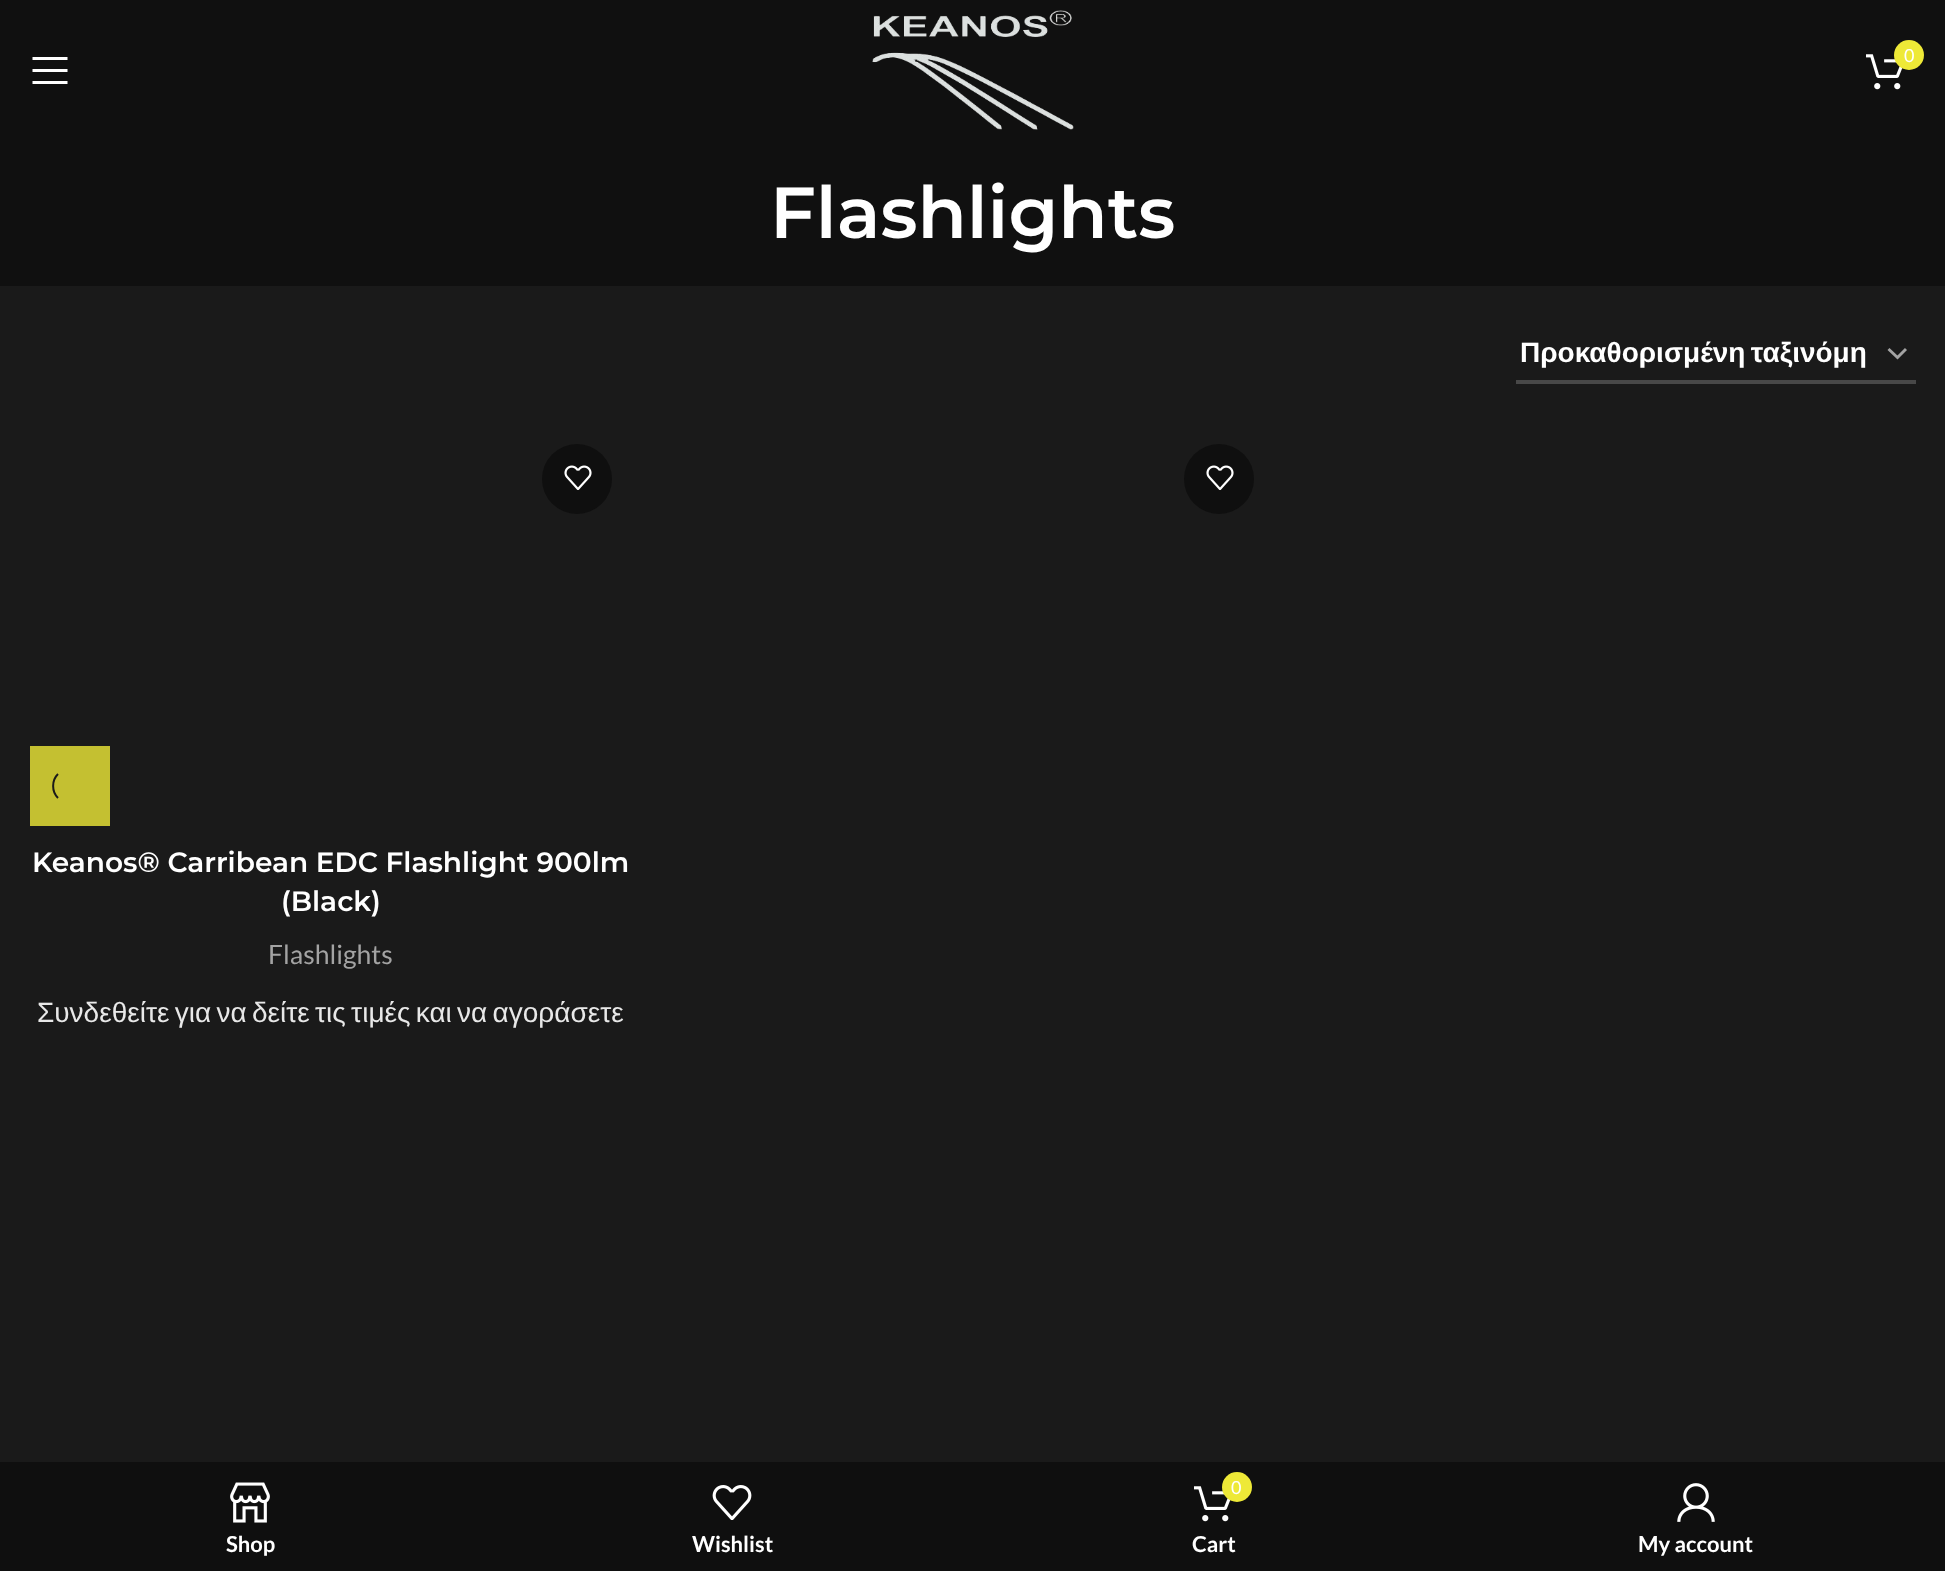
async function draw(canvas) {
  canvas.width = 1945
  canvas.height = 1571
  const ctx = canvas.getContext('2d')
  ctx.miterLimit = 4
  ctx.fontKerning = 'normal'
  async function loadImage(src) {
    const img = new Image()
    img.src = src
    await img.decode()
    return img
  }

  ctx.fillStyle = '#1a1a1a'
  ctx.fillRect(0, 0, 1945, 1571)
  ctx.fillStyle = '#101010'
  ctx.fillRect(0, 0, 1945, 286)
  ctx.drawImage(await loadImage('image0.png'), 872, 10, 202, 120)
  ctx.drawImage(await loadImage('image1.png'), 1866, 54, 37, 36)
  ctx.fillStyle = '#eee937'
  ctx.beginPath()
  ctx.arc(1909, 55, 15, 0, 2 * Math.PI)
  ctx.fill()
  ctx.font = '18px Lato'
  ctx.fillStyle = '#fff'
  ctx.fillText('0', 1904, 62)
  ctx.beginPath()
  ctx.moveTo(32.5, 60)
  ctx.lineTo(67.5, 60)
  ctx.lineTo(67.5, 57)
  ctx.lineTo(32.5, 57)
  ctx.closePath()
  ctx.moveTo(32.5, 72)
  ctx.lineTo(67.5, 72)
  ctx.lineTo(67.5, 69)
  ctx.lineTo(32.5, 69)
  ctx.closePath()
  ctx.moveTo(32.5, 84)
  ctx.lineTo(67.5, 84)
  ctx.lineTo(67.5, 81)
  ctx.lineTo(32.5, 81)
  ctx.closePath()
  ctx.fill()
  ctx.font = '600 72px Montserrat'
  ctx.fillText('Flashlights', 770, 238)
  ctx.beginPath()
  ctx.moveTo(1888.5, 349)
  ctx.lineTo(1897.5, 357.5)
  ctx.lineTo(1906, 349)
  ctx.strokeStyle = '#a3a3a3'
  ctx.lineWidth = 2.9
  ctx.stroke()
  ctx.fillStyle = '#484848'
  ctx.fillRect(1516, 380, 400, 4)
  ctx.wordSpacing = '-2.5px'
  ctx.font = 'bold 28px Liberation Sans'
  ctx.fillStyle = '#fff'
  ctx.fillText('Προκαθορισμένη ταξινόμη', 1520, 362)
  ctx.fillStyle = '#0f0f0f'
  ctx.beginPath()
  ctx.arc(1219, 479, 35, 0, 2 * Math.PI)
  ctx.fill()
  ctx.drawImage(await loadImage('image2.png'), 1206, 465, 28, 25)
  ctx.beginPath()
  ctx.arc(577, 479, 35, 0, 2 * Math.PI)
  ctx.fill()
  ctx.drawImage(await loadImage('image2.png'), 564, 465, 28, 25)
  ctx.fillStyle = '#c4c031'
  ctx.fillRect(30, 746, 80, 80)
  ctx.beginPath()
  ctx.moveTo(58, 798)
  ctx.bezierCurveTo(51.5, 791.5, 51.5, 780.5, 58, 774)
  ctx.strokeStyle = '#1a1a1a'
  ctx.lineWidth = 2
  ctx.stroke()
  ctx.wordSpacing = '0px'
  ctx.font = '600 28px Montserrat'
  ctx.fillStyle = '#fff'
  ctx.fillText('Keanos® Carribean EDC Flashlight 900lm', 32, 872)
  ctx.fillText('(Black)', 281, 911)
  ctx.font = '26.5px Lato'
  ctx.fillStyle = '#a3a3a3'
  ctx.fillText('Flashlights', 268, 964)
  ctx.wordSpacing = '-2.5px'
  ctx.font = '28px Liberation Sans'
  ctx.fillStyle = '#e8e8e8'
  ctx.fillText('Συνδεθείτε για να δείτε τις τιμές και να αγοράσετε', 37, 1022)
  ctx.fillStyle = '#0f0f0f'
  ctx.fillRect(0, 1462, 1945, 109)
  ctx.drawImage(await loadImage('image3.png'), 230, 1482, 40, 41)
  ctx.wordSpacing = '0px'
  ctx.font = 'bold 22px Lato'
  ctx.fillStyle = '#fff'
  ctx.fillText('Shop', 226, 1552)
  ctx.drawImage(await loadImage('image4.png'), 712, 1485, 40, 35)
  ctx.fillText('Wishlist', 692, 1552)
  ctx.drawImage(await loadImage('image5.png'), 1194, 1486, 37, 36)
  ctx.fillStyle = '#eee937'
  ctx.beginPath()
  ctx.arc(1237, 1487, 15, 0, 2 * Math.PI)
  ctx.fill()
  ctx.font = '18px Lato'
  ctx.fillStyle = '#fff'
  ctx.fillText('0', 1231, 1494)
  ctx.font = 'bold 22px Lato'
  ctx.fillText('Cart', 1192, 1552)
  ctx.drawImage(await loadImage('image6.png'), 1677, 1483, 38, 39)
  ctx.fillText('My account', 1638, 1552)
}

draw(document.querySelector('canvas'))
